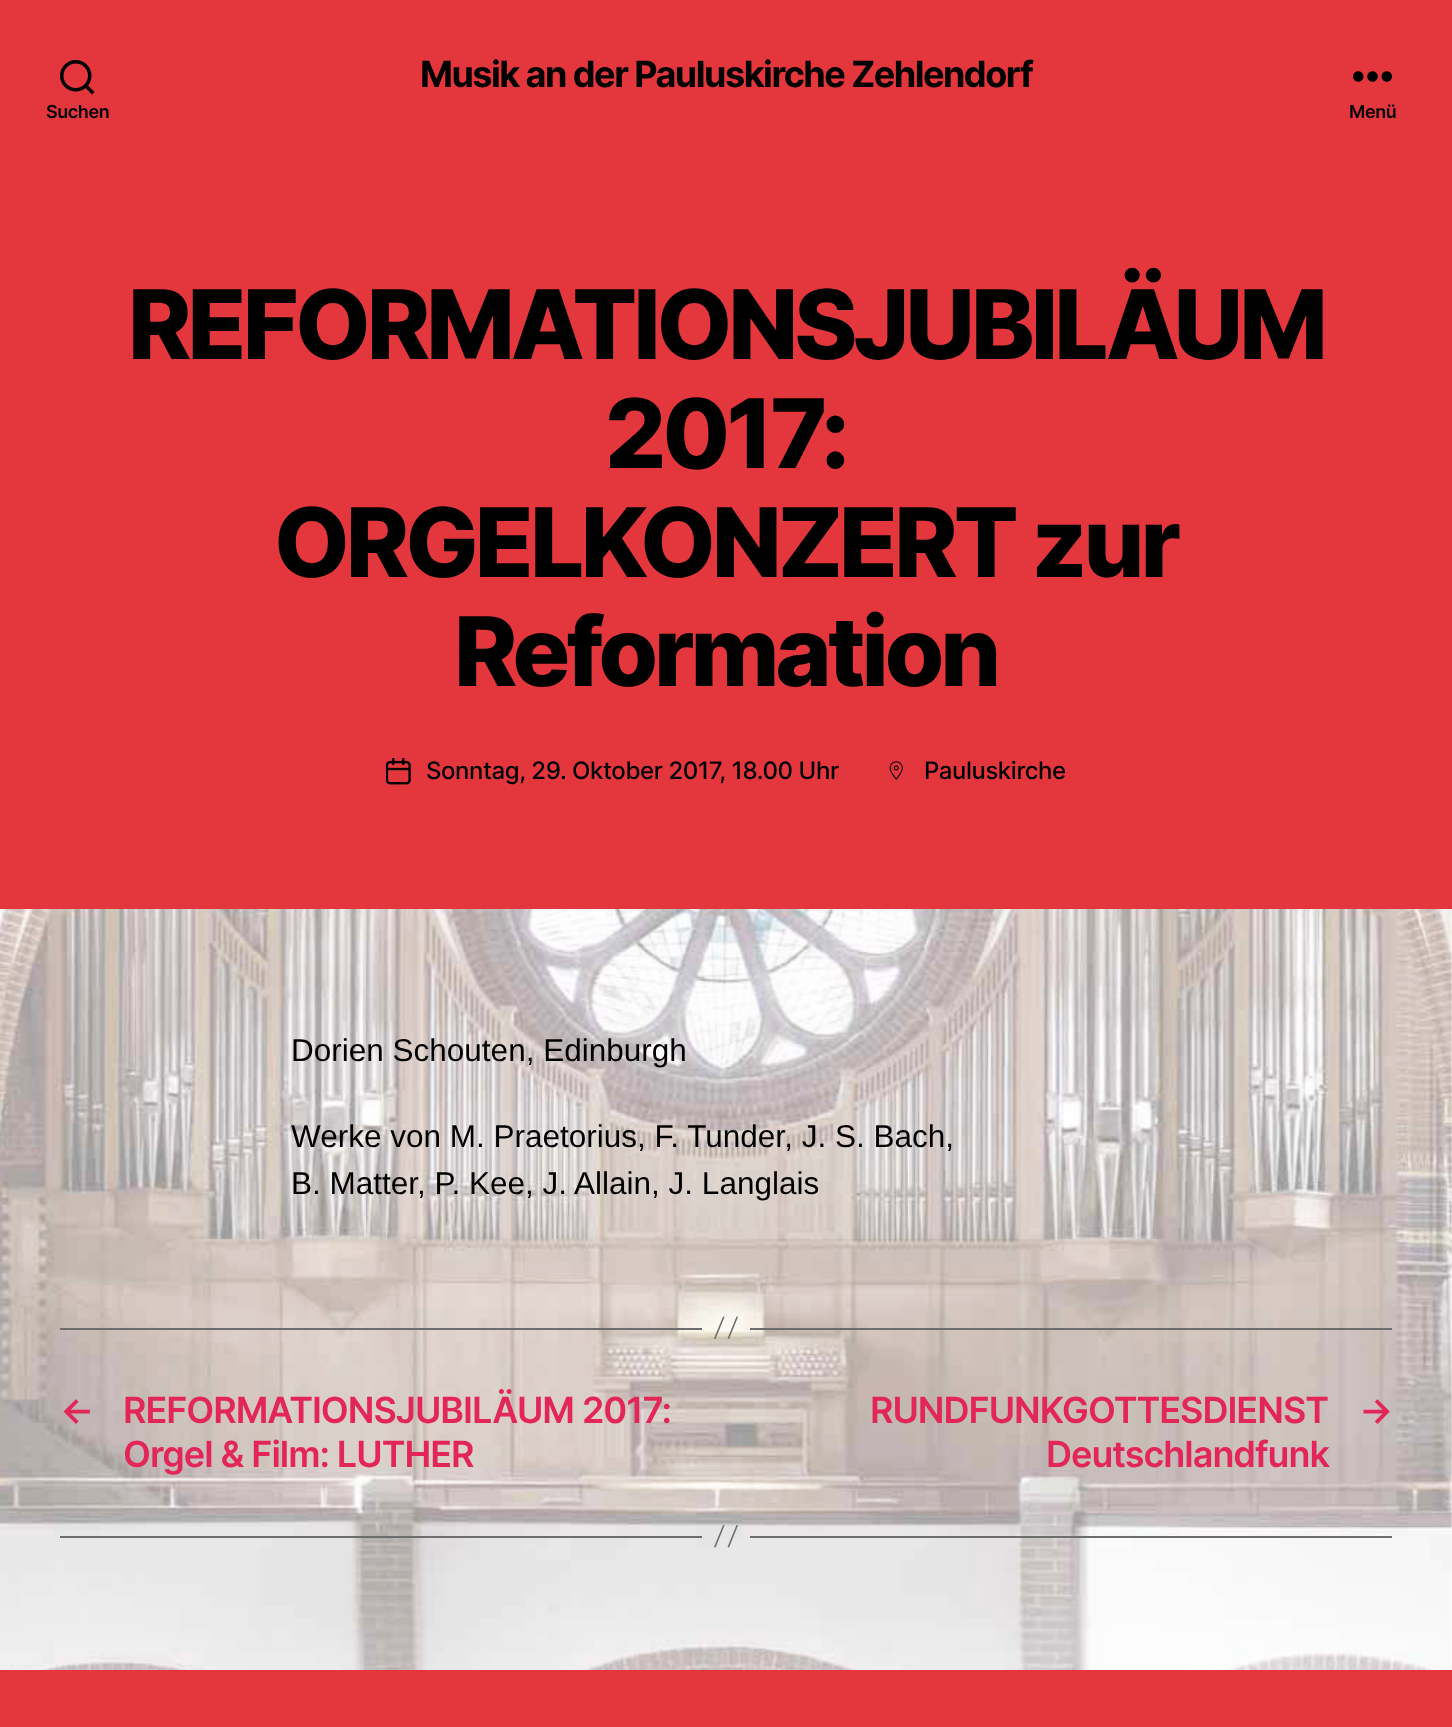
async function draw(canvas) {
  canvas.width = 1452
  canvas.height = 1727
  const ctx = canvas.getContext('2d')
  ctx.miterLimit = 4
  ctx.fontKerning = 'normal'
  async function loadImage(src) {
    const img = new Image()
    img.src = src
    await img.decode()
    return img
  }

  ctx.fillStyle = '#fff'
  ctx.fillRect(0, 0, 1452, 1727)
  ctx.drawImage(await loadImage('image0.png'), 0, 909, 1452, 761)
  ctx.fillStyle = '#e3373d'
  ctx.fillRect(0, 0, 1452, 909)
  ctx.letterSpacing = '-1.5px'
  ctx.font = 'bold 36px Inter'
  ctx.fillStyle = '#000'
  ctx.fillText('Musik an der Pauluskirche Zehlendorf', 420, 87)
  ctx.drawImage(await loadImage('image1.png'), 60, 60, 35, 35)
  ctx.letterSpacing = '-0.4px'
  ctx.font = '600 18px Inter'
  ctx.fillText('Suchen', 46, 118)
  ctx.drawImage(await loadImage('image2.png'), 1353, 71, 39, 11)
  ctx.fillText('Menü', 1349, 118)
  ctx.letterSpacing = '-4px'
  ctx.font = '800 96px Inter'
  ctx.fillText('REFORMATIONSJUBILÄUM', 128, 359)
  ctx.fillText('2017:', 605, 468)
  ctx.fillText('ORGELKONZERT zur', 274, 577)
  ctx.fillText('Reformation', 454, 686)
  ctx.drawImage(await loadImage('image3.png'), 386, 758, 25, 27)
  ctx.letterSpacing = '-0.4px'
  ctx.font = '500 24px Inter'
  ctx.fillText('Sonntag, 29. Oktober 2017, 18.00 Uhr', 426, 779)
  ctx.drawImage(await loadImage('image4.png'), 889, 761, 14, 19)
  ctx.fillText('Pauluskirche', 924, 779)
  ctx.letterSpacing = '0px'
  ctx.font = '31.5px Liberation Sans'
  ctx.fillText('Dorien Schouten, Edinburgh', 291, 1061)
  ctx.fillText('Werke von M. Praetorius, F. Tunder, J. S. Bach,', 291, 1147)
  ctx.fillText('B. Matter, P. Kee, J. Allain, J. Langlais', 291, 1194)
  ctx.fillStyle = '#6d6d6d'
  ctx.fillRect(750, 1328, 642, 2)
  ctx.fillRect(60, 1328, 642, 2)
  ctx.beginPath()
  ctx.moveTo(723, 1316.5)
  ctx.lineTo(724.5, 1317)
  ctx.lineTo(715.5, 1339)
  ctx.lineTo(714, 1338.5)
  ctx.closePath()
  ctx.moveTo(736.5, 1316.5)
  ctx.lineTo(738, 1317)
  ctx.lineTo(729, 1339)
  ctx.lineTo(727.5, 1338.5)
  ctx.closePath()
  ctx.fill()
  ctx.letterSpacing = '-1px'
  ctx.font = '600 36px Inter'
  ctx.fillStyle = '#e22658'
  ctx.fillText('←', 60, 1423)
  ctx.fillText('REFORMATIONSJUBILÄUM 2017:', 123, 1423)
  ctx.fillText('Orgel & Film: LUTHER', 123, 1467)
  ctx.fillText('RUNDFUNKGOTTESDIENST', 870, 1423)
  ctx.fillText('Deutschlandfunk', 1046, 1467)
  ctx.fillText('→', 1359, 1423)
  ctx.fillStyle = '#6d6d6d'
  ctx.fillRect(750, 1536, 642, 2)
  ctx.fillRect(60, 1536, 642, 2)
  ctx.beginPath()
  ctx.moveTo(723, 1525)
  ctx.lineTo(724.5, 1525.5)
  ctx.lineTo(715.5, 1547.5)
  ctx.lineTo(714, 1547)
  ctx.closePath()
  ctx.moveTo(736.5, 1525)
  ctx.lineTo(738, 1525.5)
  ctx.lineTo(729, 1547.5)
  ctx.lineTo(727.5, 1547)
  ctx.closePath()
  ctx.fill()
  ctx.fillStyle = '#e3373d'
  ctx.fillRect(0, 1670, 1452, 57)
}

draw(document.querySelector('canvas'))
